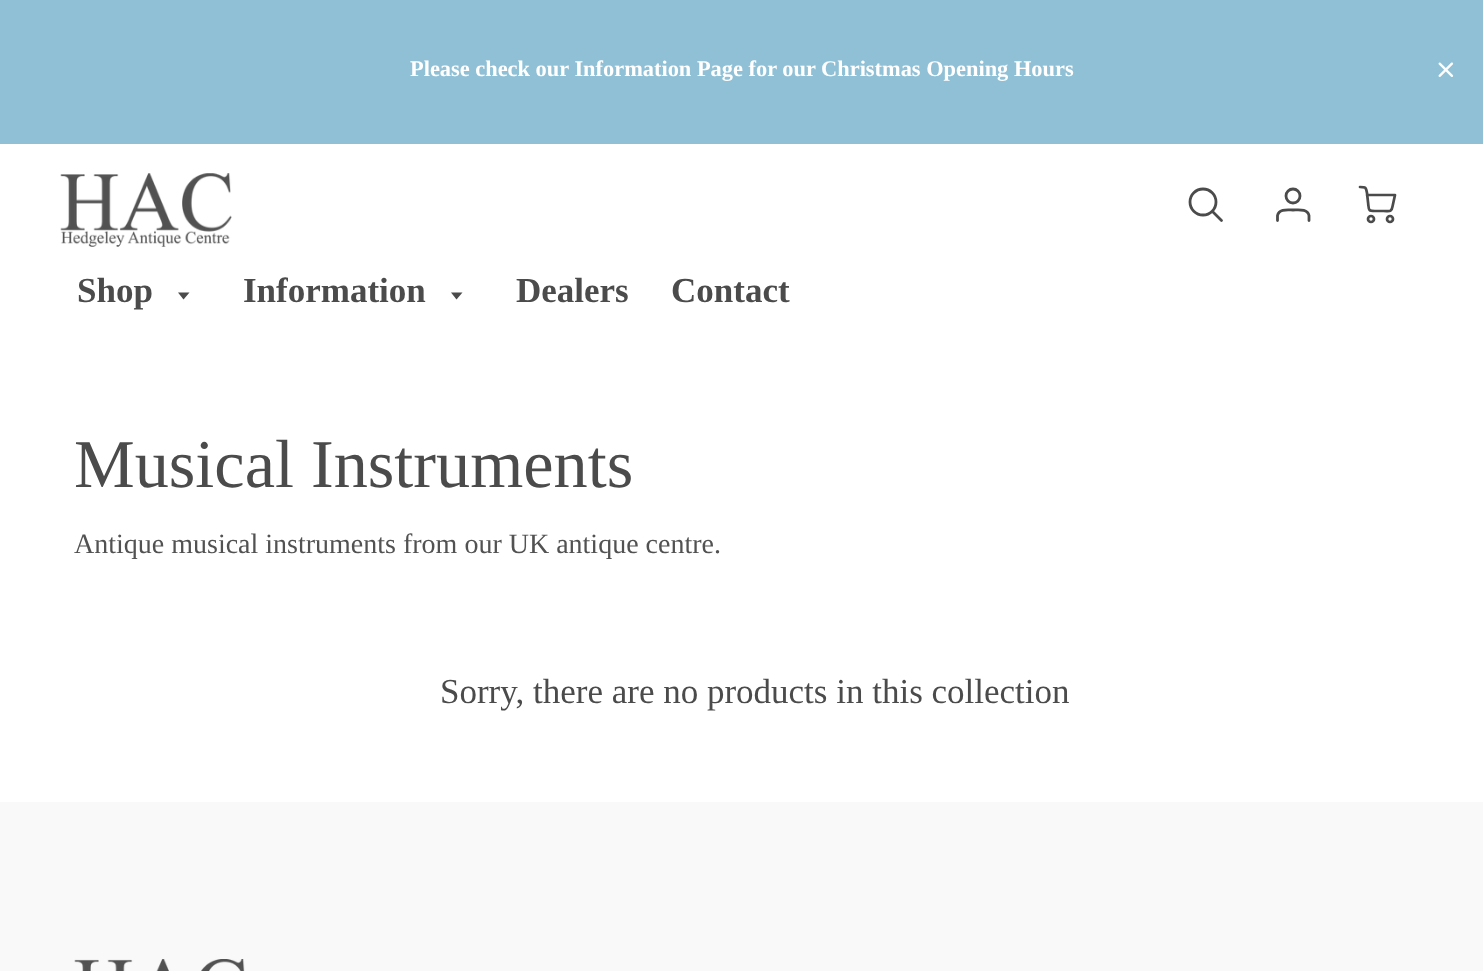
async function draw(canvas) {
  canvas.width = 1483
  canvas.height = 971
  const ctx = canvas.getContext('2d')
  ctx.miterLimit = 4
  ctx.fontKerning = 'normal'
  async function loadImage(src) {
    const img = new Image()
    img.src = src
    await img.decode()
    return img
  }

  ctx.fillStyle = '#f9f9f9'
  ctx.fillRect(0, 0, 1483, 971)
  ctx.fillStyle = '#90c0d6'
  ctx.fillRect(0, 0, 1483, 144)
  ctx.font = 'bold 22.4px Liberation Serif'
  ctx.fillStyle = '#fff'
  ctx.fillText('Please check our Information Page for our Christmas Opening Hours', 410, 76)
  ctx.drawImage(await loadImage('image0.png'), 1438, 62, 16, 15)
  ctx.fillRect(0, 144, 1483, 658)
  ctx.drawImage(await loadImage('image1.png'), 60, 173, 172, 74)
  ctx.beginPath()
  ctx.arc(1203, 202, 13, 0, 2 * Math.PI)
  ctx.strokeStyle = '#4b4b4b'
  ctx.lineWidth = 2.8
  ctx.stroke()
  ctx.beginPath()
  ctx.moveTo(1221.5, 220.5)
  ctx.lineTo(1213, 212)
  ctx.lineCap = 'round'
  ctx.lineJoin = 'round'
  ctx.stroke()
  ctx.beginPath()
  ctx.arc(1293, 196, 7, 0, 2 * Math.PI)
  ctx.stroke()
  ctx.beginPath()
  ctx.moveTo(1309, 220.5)
  ctx.lineTo(1309, 215.5)
  ctx.bezierCurveTo(1307.5, 208.5, 1298.5, 210, 1293, 210)
  ctx.bezierCurveTo(1288, 210, 1279, 208.5, 1277.5, 215.5)
  ctx.lineTo(1277.5, 220.5)
  ctx.stroke()
  ctx.beginPath()
  ctx.moveTo(1367, 195)
  ctx.lineTo(1395, 195)
  ctx.lineTo(1392.5, 206.5)
  ctx.bezierCurveTo(1391.5, 212.5, 1389.5, 211, 1383.5, 211)
  ctx.lineTo(1375, 211)
  ctx.bezierCurveTo(1367.5, 211, 1369, 209.5, 1368, 202)
  ctx.lineTo(1367, 193)
  ctx.bezierCurveTo(1366, 187, 1365.5, 187, 1360, 187)
  ctx.lineWidth = 2.7
  ctx.stroke()
  ctx.beginPath()
  ctx.arc(1371, 219, 3, 0, 2 * Math.PI)
  ctx.stroke()
  ctx.beginPath()
  ctx.arc(1390, 219, 3, 0, 2 * Math.PI)
  ctx.stroke()
  ctx.font = 'bold 35px Liberation Serif'
  ctx.fillStyle = '#4b4b4b'
  ctx.fillText('Shop', 77, 302)
  ctx.beginPath()
  ctx.moveTo(178, 292.5)
  ctx.lineTo(183.5, 299.5)
  ctx.lineTo(189.5, 292.5)
  ctx.closePath()
  ctx.fill()
  ctx.fillText('Information', 243, 302)
  ctx.beginPath()
  ctx.moveTo(451, 292.5)
  ctx.lineTo(456.5, 299.5)
  ctx.lineTo(462.5, 292.5)
  ctx.closePath()
  ctx.fill()
  ctx.fillText('Dealers', 516, 302)
  ctx.fillText('Contact', 671, 302)
  ctx.font = '68.25px Liberation Serif'
  ctx.fillText('Musical Instruments', 74, 487)
  ctx.font = '28px Liberation Serif'
  ctx.fillStyle = '#525252'
  ctx.fillText('Antique musical instruments from our UK antique centre.', 74, 553)
  ctx.font = '35px Liberation Serif'
  ctx.fillStyle = '#4b4b4b'
  ctx.fillText('Sorry, there are no products in this collection', 440, 703)
  ctx.drawImage(await loadImage('image2.png'), 74, 959, 171, 12)
}

draw(document.querySelector('canvas'))
